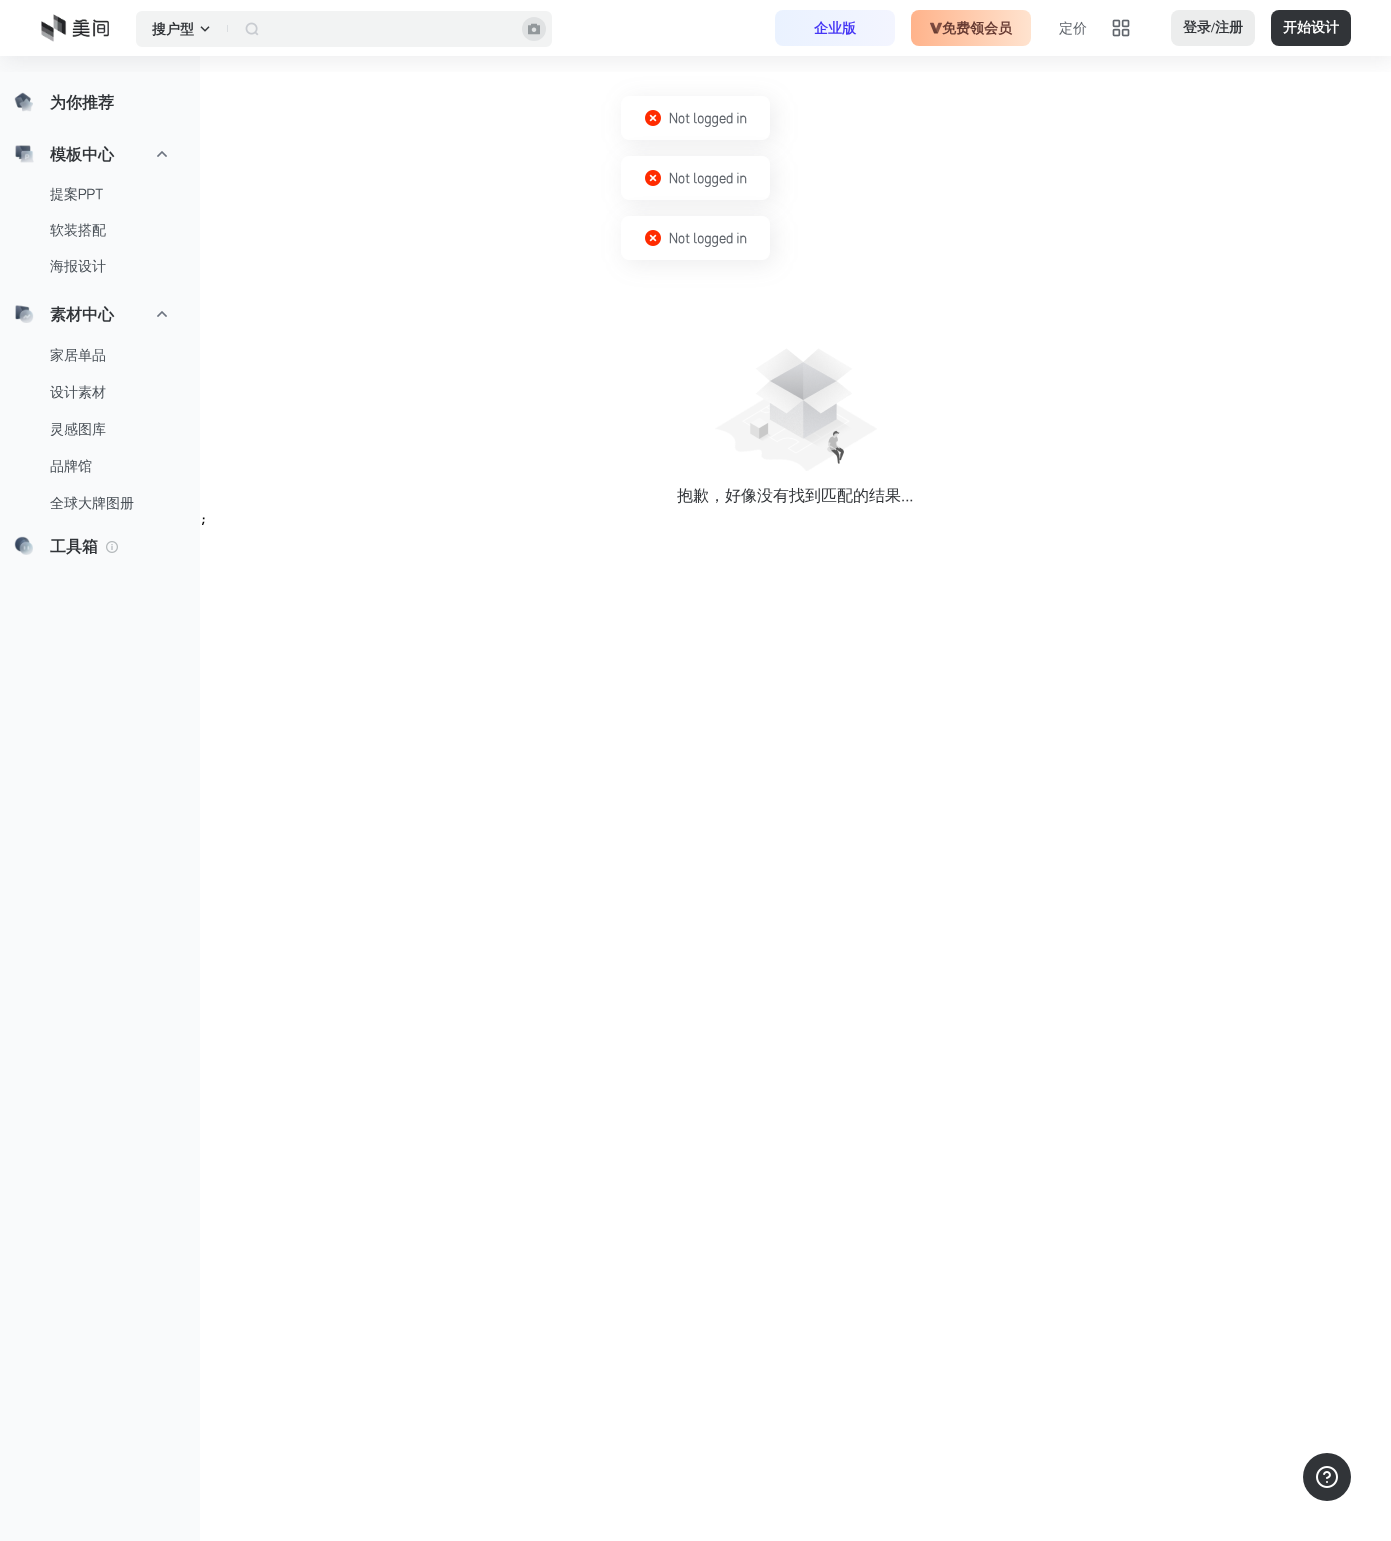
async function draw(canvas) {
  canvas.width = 1391
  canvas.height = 1541
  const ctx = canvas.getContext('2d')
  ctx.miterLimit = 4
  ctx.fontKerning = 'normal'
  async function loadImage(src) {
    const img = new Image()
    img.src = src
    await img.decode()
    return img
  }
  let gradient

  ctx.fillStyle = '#fff'
  ctx.fillRect(0, 0, 1391, 1541)
  ctx.fillStyle = '#f9fafb'
  ctx.fillRect(0, 56, 200, 1485)
  ctx.drawImage(await loadImage('image6.png'), 14, 92, 19, 20)
  ctx.save()
  ctx.beginPath()
  ctx.rect(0, 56, 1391, 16)
  ctx.clip()
  ctx.fillStyle = '#60656c1f'
  ctx.filter = 'blur(12px)'
  ctx.beginPath()
  ctx.rect(4, 4, 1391, 56)
  ctx.fill()
  ctx.filter = 'none'
  ctx.restore()
  ctx.drawImage(await loadImage('image0.png'), 41, 14, 68, 28)
  ctx.fillStyle = '#f2f3f3'
  ctx.beginPath()
  ctx.roundRect(135, 10, 418, 38, 7)
  ctx.fill()
  ctx.strokeStyle = '#fff'
  ctx.lineWidth = 2
  ctx.stroke()
  ctx.font = 'bold 14px WenQuanYi Zen Hei'
  ctx.fillStyle = '#313438'
  ctx.fillText('搜户型', 152, 34)
  ctx.drawImage(await loadImage('image1.png'), 200, 26, 10, 6)
  ctx.fillStyle = '#dadde0'
  ctx.fillRect(227, 25, 1, 7)
  ctx.drawImage(await loadImage('image2.png'), 245, 22, 14, 14)
  ctx.fillStyle = '#e0e2e3'
  ctx.beginPath()
  ctx.arc(534, 29, 12, 0, 2 * Math.PI)
  ctx.fill()
  ctx.drawImage(await loadImage('image3.png'), 528, 23, 12, 12)
  gradient = ctx.createLinearGradient(895, 28, 775, 28)
  gradient.addColorStop(0, '#f3f5ff')
  gradient.addColorStop(1, '#eaf2ff')
  ctx.fillStyle = gradient
  ctx.beginPath()
  ctx.roundRect(775, 10, 120, 36, 8)
  ctx.fill()
  ctx.fillStyle = '#4536f5'
  ctx.fillText('企业版', 814, 33)
  gradient = ctx.createLinearGradient(911, 28, 1031, 28)
  gradient.addColorStop(0, '#ffb38b')
  gradient.addColorStop(1, '#ffe3cf')
  ctx.fillStyle = gradient
  ctx.beginPath()
  ctx.roundRect(911, 10, 120, 36, 8)
  ctx.fill()
  ctx.drawImage(await loadImage('image4.png'), 930, 22, 12, 12)
  ctx.fillStyle = '#673b33'
  ctx.fillText('免费领会员', 942, 33)
  ctx.font = '500 14px WenQuanYi Zen Hei'
  ctx.fillStyle = '#60656c'
  ctx.fillText('定价', 1059, 33)
  ctx.drawImage(await loadImage('image5.png'), 1112, 19, 18, 18)
  ctx.fillStyle = '#eceded'
  ctx.beginPath()
  ctx.roundRect(1171, 10, 84, 36, 8)
  ctx.fill()
  ctx.font = 'bold 14px WenQuanYi Zen Hei'
  ctx.fillStyle = '#313438'
  ctx.fillText('登录', 1183, 32)
  ctx.font = 'bold 14px Liberation Serif'
  ctx.fillText('/', 1211, 32)
  ctx.font = 'bold 14px WenQuanYi Zen Hei'
  ctx.fillText('注册', 1215, 32)
  ctx.beginPath()
  ctx.roundRect(1271, 10, 80, 36, 8)
  ctx.fill()
  ctx.fillStyle = '#fff'
  ctx.fillText('开始设计', 1283, 32)
  ctx.font = 'bold 16px WenQuanYi Zen Hei'
  ctx.fillStyle = '#313438'
  ctx.fillText('为你推荐', 50, 108)
  ctx.drawImage(await loadImage('image7.png'), 15, 145, 19, 18)
  ctx.fillText('模板中心', 50, 160)
  ctx.drawImage(await loadImage('image8.png'), 157, 151, 10, 6)
  ctx.font = '500 14px WenQuanYi Zen Hei'
  ctx.fillStyle = '#484f56'
  ctx.fillText('提案', 50, 199)
  ctx.font = '14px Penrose'
  ctx.fillText('PPT', 78, 199)
  ctx.font = '500 14px WenQuanYi Zen Hei'
  ctx.fillText('软装搭配', 50, 235)
  ctx.fillText('海报设计', 50, 271)
  ctx.drawImage(await loadImage('image9.png'), 15, 305, 19, 18)
  ctx.font = 'bold 16px WenQuanYi Zen Hei'
  ctx.fillStyle = '#313438'
  ctx.fillText('素材中心', 50, 320)
  ctx.drawImage(await loadImage('image8.png'), 157, 311, 10, 6)
  ctx.font = '500 14px WenQuanYi Zen Hei'
  ctx.fillStyle = '#484f56'
  ctx.fillText('家居单品', 50, 360)
  ctx.fillText('设计素材', 50, 397)
  ctx.fillText('灵感图库', 50, 434)
  ctx.fillText('品牌馆', 50, 471)
  ctx.fillText('全球大牌图册', 50, 508)
  ctx.drawImage(await loadImage('image10.png'), 14, 536, 19, 19)
  ctx.font = 'bold 16px WenQuanYi Zen Hei'
  ctx.fillStyle = '#313438'
  ctx.fillText('工具箱', 50, 552)
  ctx.drawImage(await loadImage('image11.png'), 106, 541, 12, 12)
  ctx.drawImage(await loadImage('image12.png'), 715, 348, 162, 123)
  ctx.font = '500 16px WenQuanYi Zen Hei'
  ctx.fillText('抱歉，好像没有找到匹配的结果', 677, 501)
  ctx.font = '16px Penrose'
  ctx.fillText('...', 901, 501)
  ctx.fillStyle = '#000'
  ctx.fillText(';', 200, 523)
  ctx.fillStyle = '#313438'
  ctx.beginPath()
  ctx.arc(1327, 1477, 24, 0, 2 * Math.PI)
  ctx.fill()
  ctx.drawImage(await loadImage('image13.png'), 1316, 1466, 22, 22)
  ctx.fillStyle = '#60656c1f'
  ctx.filter = 'blur(12px)'
  ctx.beginPath()
  ctx.roundRect(625, 100, 149, 44, 8)
  ctx.fill()
  ctx.filter = 'none'
  ctx.fillStyle = '#fff'
  ctx.beginPath()
  ctx.roundRect(621, 96, 149, 44, 8)
  ctx.fill()
  ctx.fillStyle = '#60656c1f'
  ctx.filter = 'blur(12px)'
  ctx.beginPath()
  ctx.roundRect(625, 160, 149, 44, 8)
  ctx.fill()
  ctx.filter = 'none'
  ctx.drawImage(await loadImage('image14.png'), 645, 110, 16, 16)
  ctx.font = '14px Penrose'
  ctx.fillStyle = '#60656c'
  ctx.fillText('Not logged in', 669, 123)
  ctx.fillStyle = '#fff'
  ctx.beginPath()
  ctx.roundRect(621, 156, 149, 44, 8)
  ctx.fill()
  ctx.fillStyle = '#60656c1f'
  ctx.filter = 'blur(12px)'
  ctx.beginPath()
  ctx.roundRect(625, 220, 149, 44, 8)
  ctx.fill()
  ctx.filter = 'none'
  ctx.drawImage(await loadImage('image14.png'), 645, 170, 16, 16)
  ctx.fillStyle = '#60656c'
  ctx.fillText('Not logged in', 669, 183)
  ctx.fillStyle = '#fff'
  ctx.beginPath()
  ctx.roundRect(621, 216, 149, 44, 8)
  ctx.fill()
  ctx.drawImage(await loadImage('image14.png'), 645, 230, 16, 16)
  ctx.fillStyle = '#60656c'
  ctx.fillText('Not logged in', 669, 243)
}

draw(document.querySelector('canvas'))
